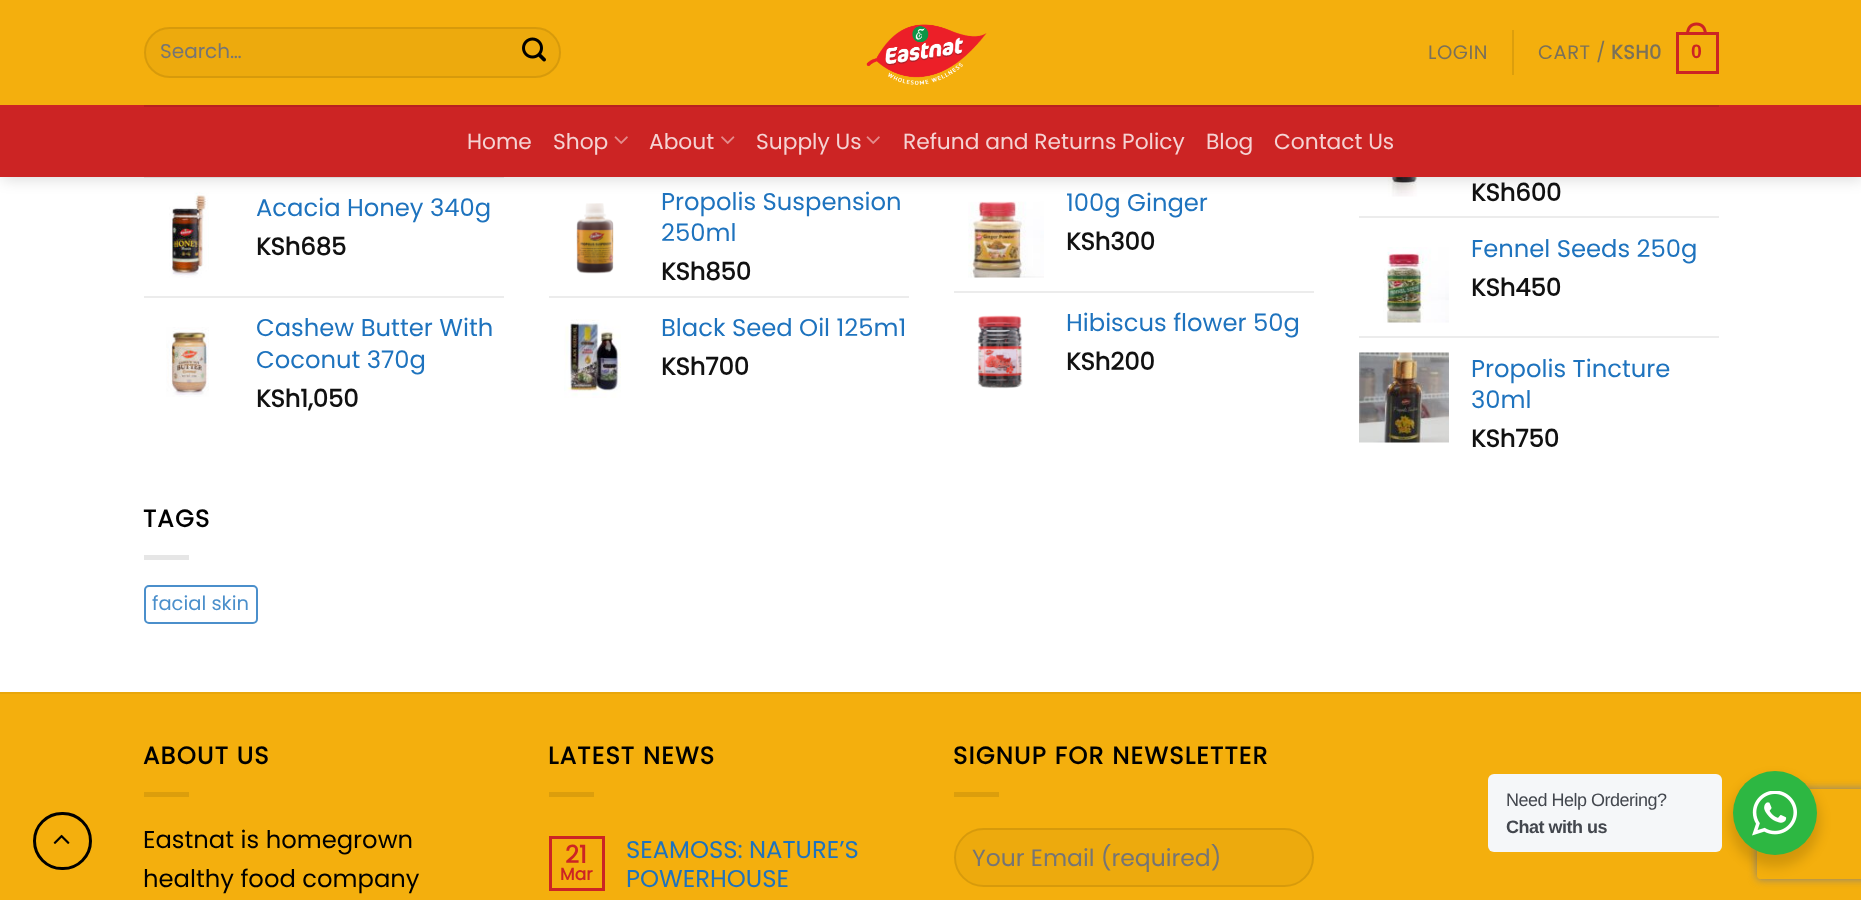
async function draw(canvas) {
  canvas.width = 1861
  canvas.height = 900
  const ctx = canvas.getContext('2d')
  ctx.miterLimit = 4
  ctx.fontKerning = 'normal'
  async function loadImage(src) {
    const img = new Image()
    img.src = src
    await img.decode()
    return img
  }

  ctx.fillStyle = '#fff'
  ctx.fillRect(0, 0, 1861, 900)
  ctx.fillStyle = '#ececec'
  ctx.fillRect(144, 177, 360, 1)
  ctx.drawImage(await loadImage('image4.png'), 169, 192, 40, 86)
  ctx.drawImage(await loadImage('image8.png'), 968, 201, 76, 77)
  ctx.drawImage(await loadImage('image10.png'), 1387, 177, 31, 20)
  ctx.fillStyle = '#00000026'
  ctx.filter = 'blur(7.5px)'
  ctx.beginPath()
  ctx.rect(2, 2, 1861, 177)
  ctx.fill()
  ctx.filter = 'none'
  ctx.fillStyle = '#f4af0d'
  ctx.fillRect(0, 0, 1861, 105)
  ctx.fillStyle = '#edaa0d'
  ctx.beginPath()
  ctx.roundRect(144, 27, 417, 51, 25.5)
  ctx.fill()
  ctx.beginPath()
  ctx.roundRect(145, 28, 415, 49, 24.5)
  ctx.strokeStyle = '#00000017'
  ctx.lineWidth = 2
  ctx.stroke()
  ctx.font = '20px Poppins'
  ctx.fillStyle = '#757575'
  ctx.fillText('Search…', 160, 58)
  ctx.drawImage(await loadImage('image0.png'), 522, 37, 24, 25)
  ctx.drawImage(await loadImage('image1.png'), 866, 24, 121, 61)
  ctx.letterSpacing = '0.5px'
  ctx.font = '19.5px Poppins'
  ctx.fillStyle = '#7b7159'
  ctx.fillText('LOGIN', 1428, 59)
  ctx.fillStyle = '#dc9e0c'
  ctx.fillRect(1512, 30, 2, 45)
  ctx.fillStyle = '#7b7159'
  ctx.fillText('CART /', 1538, 59)
  ctx.font = 'bold 19.5px Poppins'
  ctx.fillText('KSH0', 1611, 59)
  ctx.strokeStyle = '#cc2424'
  ctx.lineWidth = 3
  ctx.strokeRect(1677.5, 33.5, 40, 39)
  ctx.fillStyle = '#cc2424'
  ctx.beginPath()
  ctx.moveTo(1696.5, 22.5)
  ctx.bezierCurveTo(1703.5, 22.5, 1707, 28, 1707, 34.5)
  ctx.lineTo(1686, 34.5)
  ctx.bezierCurveTo(1686, 28, 1689.5, 22.5, 1696.5, 22.5)
  ctx.closePath()
  ctx.moveTo(1696.5, 25.5)
  ctx.bezierCurveTo(1702, 25.5, 1704, 30, 1704, 34.5)
  ctx.lineTo(1689, 34.5)
  ctx.bezierCurveTo(1689, 30, 1691, 25.5, 1696.5, 25.5)
  ctx.closePath()
  ctx.fill('evenodd')
  ctx.font = 'bold 19.5px Liberation Sans'
  ctx.fillText('0', 1691, 58)
  ctx.fillRect(0, 105, 1861, 72)
  ctx.fillStyle = '#b82020'
  ctx.fillRect(144, 105, 1575, 2)
  ctx.letterSpacing = '0px'
  ctx.font = '21.75px Poppins'
  ctx.fillStyle = '#f5d3d3'
  ctx.fillText('Home', 467, 149)
  ctx.fillText('Shop', 553, 149)
  ctx.drawImage(await loadImage('image2.png'), 614, 136, 14, 8)
  ctx.fillText('About', 649, 149)
  ctx.drawImage(await loadImage('image3.png'), 721, 136, 14, 8)
  ctx.fillText('Supply Us', 756, 149)
  ctx.drawImage(await loadImage('image2.png'), 866, 136, 14, 8)
  ctx.fillText('Refund and Returns Policy', 903, 149)
  ctx.fillText('Blog', 1206, 149)
  ctx.fillText('Contact Us', 1274, 149)
  ctx.font = '24.25px Poppins'
  ctx.fillStyle = '#1e73be'
  ctx.fillText('Acacia Honey 340g', 256, 216)
  ctx.font = 'bold 24.25px Poppins'
  ctx.fillStyle = '#111'
  ctx.fillText('KSh685', 256, 255)
  ctx.fillStyle = '#ececec'
  ctx.fillRect(144, 296, 360, 2)
  ctx.drawImage(await loadImage('image5.png'), 166, 327, 43, 70)
  ctx.save()
  ctx.beginPath()
  ctx.rect(257, 312, 247, 63)
  ctx.clip()
  ctx.font = '24.25px Poppins'
  ctx.fillStyle = '#1e73be'
  ctx.fillText('Cashew Butter With', 256, 336)
  ctx.fillText('Coconut 370g', 256, 368)
  ctx.restore()
  ctx.fillStyle = '#111'
  ctx.fillText('KSh1,050', 256, 407)
  ctx.drawImage(await loadImage('image6.png'), 576, 203, 38, 71)
  ctx.font = '24.25px Poppins'
  ctx.fillStyle = '#1e73be'
  ctx.fillText('Propolis Suspension', 661, 210)
  ctx.fillText('250ml', 661, 241)
  ctx.font = 'bold 24.25px Poppins'
  ctx.fillStyle = '#111'
  ctx.fillText('KSh850', 661, 280)
  ctx.fillStyle = '#ececec'
  ctx.fillRect(549, 296, 360, 2)
  ctx.drawImage(await loadImage('image7.png'), 564, 319, 57, 79)
  ctx.font = '24.25px Poppins'
  ctx.fillStyle = '#1e73be'
  ctx.fillText('Black Seed Oil 125m1', 661, 336)
  ctx.font = 'bold 24.25px Poppins'
  ctx.fillStyle = '#111'
  ctx.fillText('KSh700', 661, 375)
  ctx.save()
  ctx.beginPath()
  ctx.rect(1067, 188, 247, 31)
  ctx.clip()
  ctx.font = '24.25px Poppins'
  ctx.fillStyle = '#1e73be'
  ctx.fillText('100g Ginger', 1066, 211)
  ctx.restore()
  ctx.fillText('KSh300', 1066, 250)
  ctx.fillStyle = '#ececec'
  ctx.fillRect(954, 291, 360, 2)
  ctx.drawImage(await loadImage('image9.png'), 977, 315, 46, 74)
  ctx.font = '24.25px Poppins'
  ctx.fillStyle = '#1e73be'
  ctx.fillText('Hibiscus flower 50g', 1066, 331)
  ctx.font = 'bold 24.25px Poppins'
  ctx.fillStyle = '#111'
  ctx.fillText('KSh200', 1066, 370)
  ctx.fillText('KSh600', 1471, 201)
  ctx.fillStyle = '#ececec'
  ctx.fillRect(1359, 216, 360, 2)
  ctx.drawImage(await loadImage('image11.png'), 1383, 247, 66, 76)
  ctx.font = '24.25px Poppins'
  ctx.fillStyle = '#1e73be'
  ctx.fillText('Fennel Seeds 250g', 1471, 257)
  ctx.font = 'bold 24.25px Poppins'
  ctx.fillStyle = '#111'
  ctx.fillText('KSh450', 1471, 296)
  ctx.fillStyle = '#ececec'
  ctx.fillRect(1359, 336, 360, 2)
  ctx.drawImage(await loadImage('image12.png'), 1359, 352, 90, 91)
  ctx.font = '24.25px Poppins'
  ctx.fillStyle = '#1e73be'
  ctx.fillText('Propolis Tincture', 1471, 377)
  ctx.fillText('30ml', 1471, 408)
  ctx.font = 'bold 24.25px Poppins'
  ctx.fillStyle = '#111'
  ctx.fillText('KSh750', 1471, 447)
  ctx.letterSpacing = '1.25px'
  ctx.fillStyle = '#000'
  ctx.fillText('TAGS', 143, 527)
  ctx.fillStyle = '#e6e6e6'
  ctx.fillRect(144, 555, 45, 5)
  ctx.beginPath()
  ctx.roundRect(145, 586, 112, 37, 4)
  ctx.strokeStyle = '#4b8fcb'
  ctx.lineWidth = 2
  ctx.stroke()
  ctx.letterSpacing = '0px'
  ctx.font = '19.5px Poppins'
  ctx.fillStyle = '#4b8fcb'
  ctx.fillText('facial skin', 152, 610)
  ctx.fillStyle = '#f4af0d'
  ctx.fillRect(0, 694, 1861, 206)
  ctx.beginPath()
  ctx.roundRect(34.5, 813.5, 56, 55, 27.5)
  ctx.strokeStyle = '#000'
  ctx.lineWidth = 3
  ctx.stroke()
  ctx.drawImage(await loadImage('image13.png'), 53, 834, 17, 10)
  ctx.fillStyle = '#e8a60c'
  ctx.fillRect(0, 692, 1861, 2)
  ctx.letterSpacing = '1.25px'
  ctx.font = 'bold 24.25px Poppins'
  ctx.fillStyle = '#000'
  ctx.fillText('ABOUT US', 143, 764)
  ctx.fillStyle = '#dc9e0c'
  ctx.fillRect(144, 792, 45, 5)
  ctx.letterSpacing = '0px'
  ctx.font = '24.25px Poppins'
  ctx.fillStyle = '#000'
  ctx.fillText('Eastnat is homegrown', 143, 848)
  ctx.fillText('healthy food company', 143, 887)
  ctx.letterSpacing = '1.25px'
  ctx.font = 'bold 24.25px Poppins'
  ctx.fillText('LATEST NEWS', 548, 764)
  ctx.fillStyle = '#dc9e0c'
  ctx.fillRect(549, 792, 45, 5)
  ctx.strokeStyle = '#cc2424'
  ctx.strokeRect(550.5, 837.5, 53, 52)
  ctx.letterSpacing = '0px'
  ctx.fillStyle = '#cc2424'
  ctx.fillText('21', 565, 863)
  ctx.font = 'bold 17px Poppins'
  ctx.fillText('Mar', 560, 880)
  ctx.font = '24.25px Poppins'
  ctx.fillStyle = '#1e73be'
  ctx.fillText('SEAMOSS: NATURE’S', 626, 858)
  ctx.fillText('POWERHOUSE', 626, 887)
  ctx.letterSpacing = '1.25px'
  ctx.font = 'bold 24.25px Poppins'
  ctx.fillStyle = '#000'
  ctx.fillText('SIGNUP FOR NEWSLETTER', 953, 764)
  ctx.fillStyle = '#dc9e0c'
  ctx.fillRect(954, 792, 45, 5)
  ctx.fillStyle = '#edaa0d'
  ctx.beginPath()
  ctx.roundRect(954, 828, 360, 59, 29.5)
  ctx.fill()
  ctx.beginPath()
  ctx.roundRect(955, 829, 358, 57, 28.5)
  ctx.strokeStyle = '#00000017'
  ctx.lineWidth = 2
  ctx.stroke()
  ctx.letterSpacing = '0px'
  ctx.font = '23.5px Poppins'
  ctx.fillStyle = '#757575'
  ctx.fillText('Your Email (required)', 972, 866)
  ctx.save()
  ctx.beginPath()
  ctx.moveTo(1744, 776)
  ctx.lineTo(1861, 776)
  ctx.lineTo(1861, 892)
  ctx.lineTo(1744, 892)
  ctx.closePath()
  ctx.moveTo(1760, 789)
  ctx.lineTo(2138, 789)
  ctx.bezierCurveTo(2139.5, 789, 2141, 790.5, 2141, 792)
  ctx.lineTo(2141, 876)
  ctx.bezierCurveTo(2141, 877.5, 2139.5, 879, 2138, 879)
  ctx.lineTo(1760, 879)
  ctx.bezierCurveTo(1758.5, 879, 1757, 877.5, 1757, 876)
  ctx.lineTo(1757, 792)
  ctx.bezierCurveTo(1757, 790.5, 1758.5, 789, 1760, 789)
  ctx.closePath()
  ctx.clip('evenodd')
  ctx.fillStyle = '#808080'
  ctx.filter = 'blur(4px)'
  ctx.beginPath()
  ctx.roundRect(1757, 789, 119, 90, 3)
  ctx.fill()
  ctx.filter = 'none'
  ctx.restore()
  ctx.fillStyle = '#00000024'
  ctx.filter = 'blur(6px)'
  ctx.beginPath()
  ctx.roundRect(1730, 777, 90, 90, 45)
  ctx.fill()
  ctx.filter = 'none'
  ctx.fillStyle = '#f5f7f9'
  ctx.beginPath()
  ctx.roundRect(1488, 774, 234, 78, 6)
  ctx.fill()
  ctx.letterSpacing = '-0.5px'
  ctx.font = '18px Liberation Sans'
  ctx.fillStyle = '#43474e'
  ctx.fillText('Need Help Ordering?', 1506, 806)
  ctx.font = 'bold 18px Liberation Sans'
  ctx.fillText('Chat with us', 1506, 833)
  ctx.fillStyle = '#2db742'
  ctx.beginPath()
  ctx.arc(1775, 813, 42, 0, 2 * Math.PI)
  ctx.fill()
  ctx.drawImage(await loadImage('image14.png'), 1752, 791, 45, 45)
}

draw(document.querySelector('canvas'))
